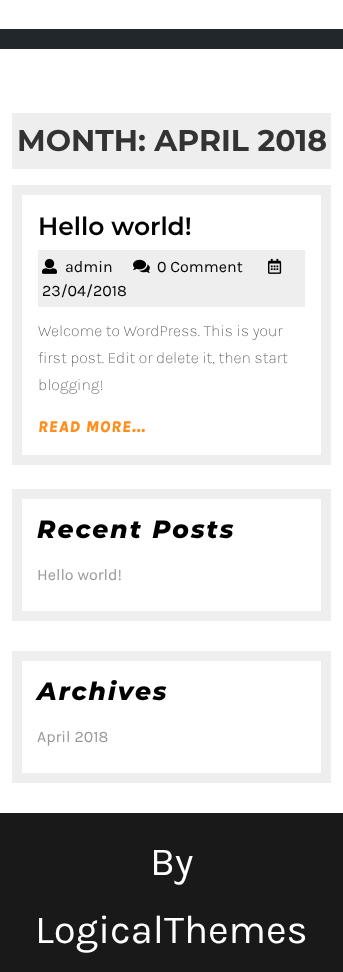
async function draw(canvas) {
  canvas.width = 343
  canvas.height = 972
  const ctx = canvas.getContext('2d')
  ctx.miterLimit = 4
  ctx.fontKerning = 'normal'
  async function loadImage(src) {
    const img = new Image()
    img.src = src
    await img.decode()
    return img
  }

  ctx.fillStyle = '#fff'
  ctx.fillRect(0, 0, 343, 972)
  ctx.fillStyle = '#22272b'
  ctx.fillRect(0, 29, 343, 20)
  ctx.fillStyle = '#eee'
  ctx.fillRect(12, 113, 319, 56)
  ctx.font = 'bold 30px Montserrat'
  ctx.fillStyle = '#333'
  ctx.fillText('MONTH: APRIL 2018', 17, 151)
  ctx.strokeStyle = '#eee'
  ctx.lineWidth = 10
  ctx.strokeRect(17, 190, 309, 270)
  ctx.font = '600 25px Montserrat'
  ctx.fillStyle = '#000'
  ctx.fillText('Hello world!', 38, 235)
  ctx.fillStyle = '#eee'
  ctx.fillRect(38, 250, 267, 57)
  ctx.drawImage(await loadImage('image0.png'), 42, 258, 15, 16)
  ctx.font = '16px Karla'
  ctx.fillStyle = '#000'
  ctx.fillText('admin', 65, 272)
  ctx.drawImage(await loadImage('image1.png'), 133, 259, 17, 14)
  ctx.fillText('0 Comment', 157, 272)
  ctx.drawImage(await loadImage('image2.png'), 268, 258, 14, 16)
  ctx.fillText('23/04/2018', 42, 296)
  ctx.font = '200 16px Karla'
  ctx.fillStyle = '#5b5b5b'
  ctx.fillText('Welcome to WordPress. This is your', 38, 336)
  ctx.fillText('first post. Edit or delete it, then start', 38, 363)
  ctx.fillText('blogging!', 38, 390)
  ctx.letterSpacing = '1px'
  ctx.font = 'italic 800 16px Karla'
  ctx.fillStyle = '#fe8e1e'
  ctx.fillText('READ MORE...', 38, 432)
  ctx.strokeRect(17, 494, 309, 122)
  ctx.letterSpacing = '2px'
  ctx.font = 'italic 800 25px Montserrat'
  ctx.fillStyle = '#000'
  ctx.fillText('Recent Posts', 37, 538)
  ctx.letterSpacing = '0px'
  ctx.font = '16px Karla'
  ctx.fillStyle = '#999'
  ctx.fillText('Hello world!', 37, 580)
  ctx.strokeRect(17, 656, 309, 122)
  ctx.letterSpacing = '2px'
  ctx.font = 'italic 800 25px Montserrat'
  ctx.fillStyle = '#000'
  ctx.fillText('Archives', 37, 700)
  ctx.letterSpacing = '0px'
  ctx.font = '16px Karla'
  ctx.fillStyle = '#999'
  ctx.fillText('April 2018', 37, 742)
  ctx.fillStyle = '#191919'
  ctx.fillRect(0, 813, 343, 159)
  ctx.font = '40px Karla'
  ctx.fillStyle = '#fff'
  ctx.fillText('By', 150, 875)
  ctx.fillText('LogicalThemes', 35, 943)
}

draw(document.querySelector('canvas'))
